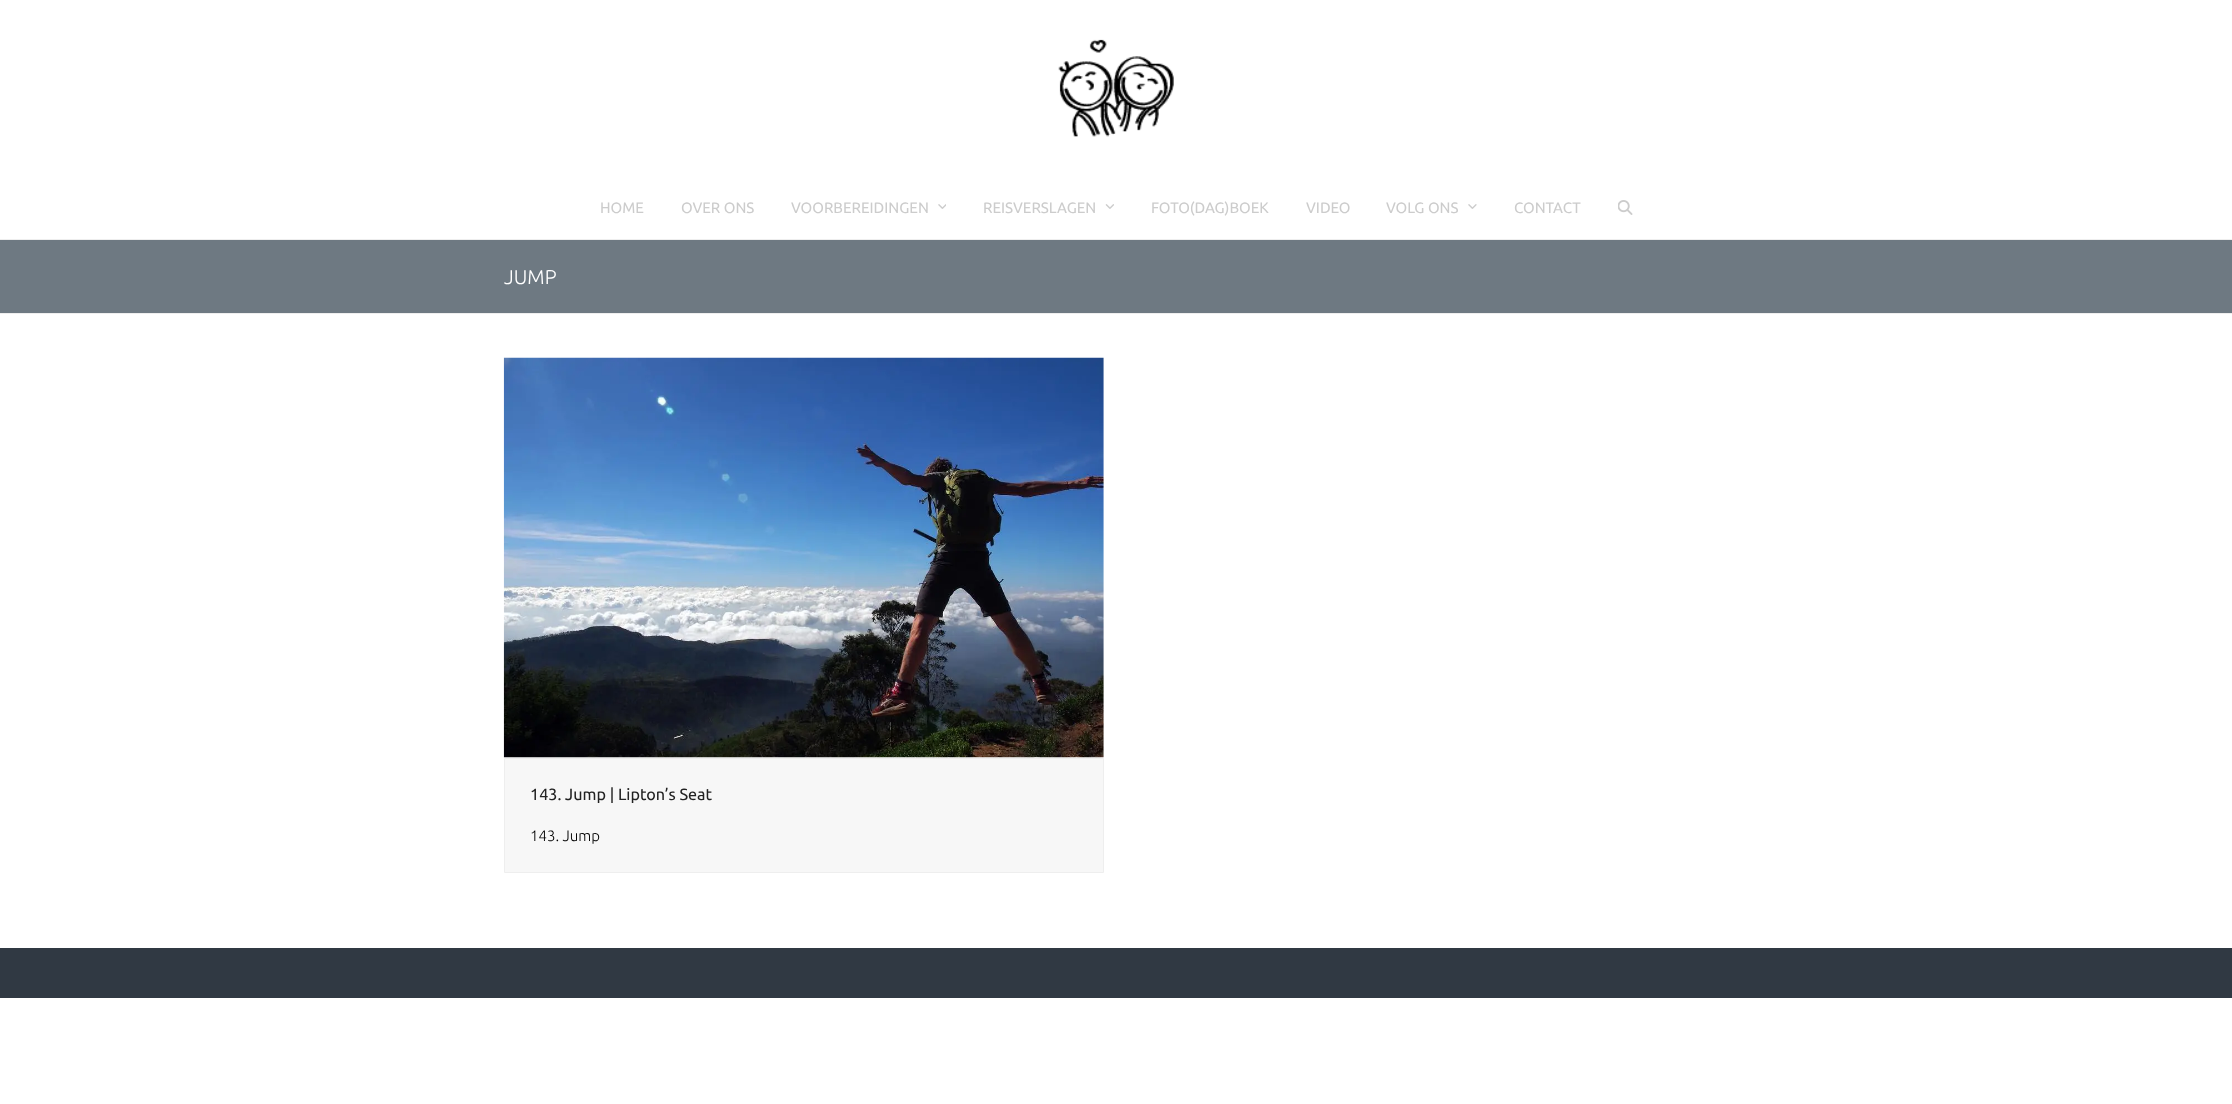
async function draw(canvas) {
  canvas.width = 2232
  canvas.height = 1104
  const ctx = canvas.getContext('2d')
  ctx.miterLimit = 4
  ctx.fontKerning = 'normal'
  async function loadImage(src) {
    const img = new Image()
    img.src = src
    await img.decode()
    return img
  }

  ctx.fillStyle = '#fff'
  ctx.fillRect(0, 0, 2232, 1104)
  ctx.drawImage(await loadImage('image0.png'), 1058, 39, 116, 98)
  ctx.font = '15px Ubuntu'
  ctx.fillStyle = '#ccc'
  ctx.fillText('HOME', 600, 213)
  ctx.fillText('OVER ONS', 681, 213)
  ctx.fillText('VOORBEREIDINGEN', 791, 213)
  ctx.drawImage(await loadImage('image1.png'), 938, 204, 8, 5)
  ctx.fillText('REISVERSLAGEN', 983, 213)
  ctx.drawImage(await loadImage('image2.png'), 1105, 204, 9, 5)
  ctx.fillText('FOTO(DAG)BOEK', 1151, 213)
  ctx.fillText('VIDEO', 1306, 213)
  ctx.fillText('VOLG ONS', 1386, 213)
  ctx.drawImage(await loadImage('image3.png'), 1468, 204, 9, 5)
  ctx.fillText('CONTACT', 1514, 213)
  ctx.drawImage(await loadImage('image4.png'), 1618, 200, 15, 15)
  ctx.fillStyle = '#6e7982'
  ctx.fillRect(0, 240, 2232, 73)
  ctx.fillStyle = '#eee'
  ctx.fillRect(0, 239, 2232, 1)
  ctx.fillRect(0, 313, 2232, 1)
  ctx.font = '300 20px Ubuntu'
  ctx.fillStyle = '#fff'
  ctx.fillText('JUMP', 504, 284)
  ctx.drawImage(await loadImage('image5.png'), 503, 357, 601, 401)
  ctx.fillStyle = '#f7f7f7'
  ctx.beginPath()
  ctx.rect(504.5, 758.5, 599, 114)
  ctx.fill()
  ctx.strokeStyle = '#eee'
  ctx.stroke()
  ctx.font = '16.2px Ubuntu'
  ctx.fillStyle = '#222'
  ctx.fillText('143. Jump | Lipton’s Seat', 530, 800)
  ctx.font = '300 15px Ubuntu'
  ctx.fillStyle = '#000'
  ctx.fillText('143. Jump', 530, 841)
  ctx.fillStyle = '#303943'
  ctx.fillRect(0, 948, 2232, 50)
}

draw(document.querySelector('canvas'))
